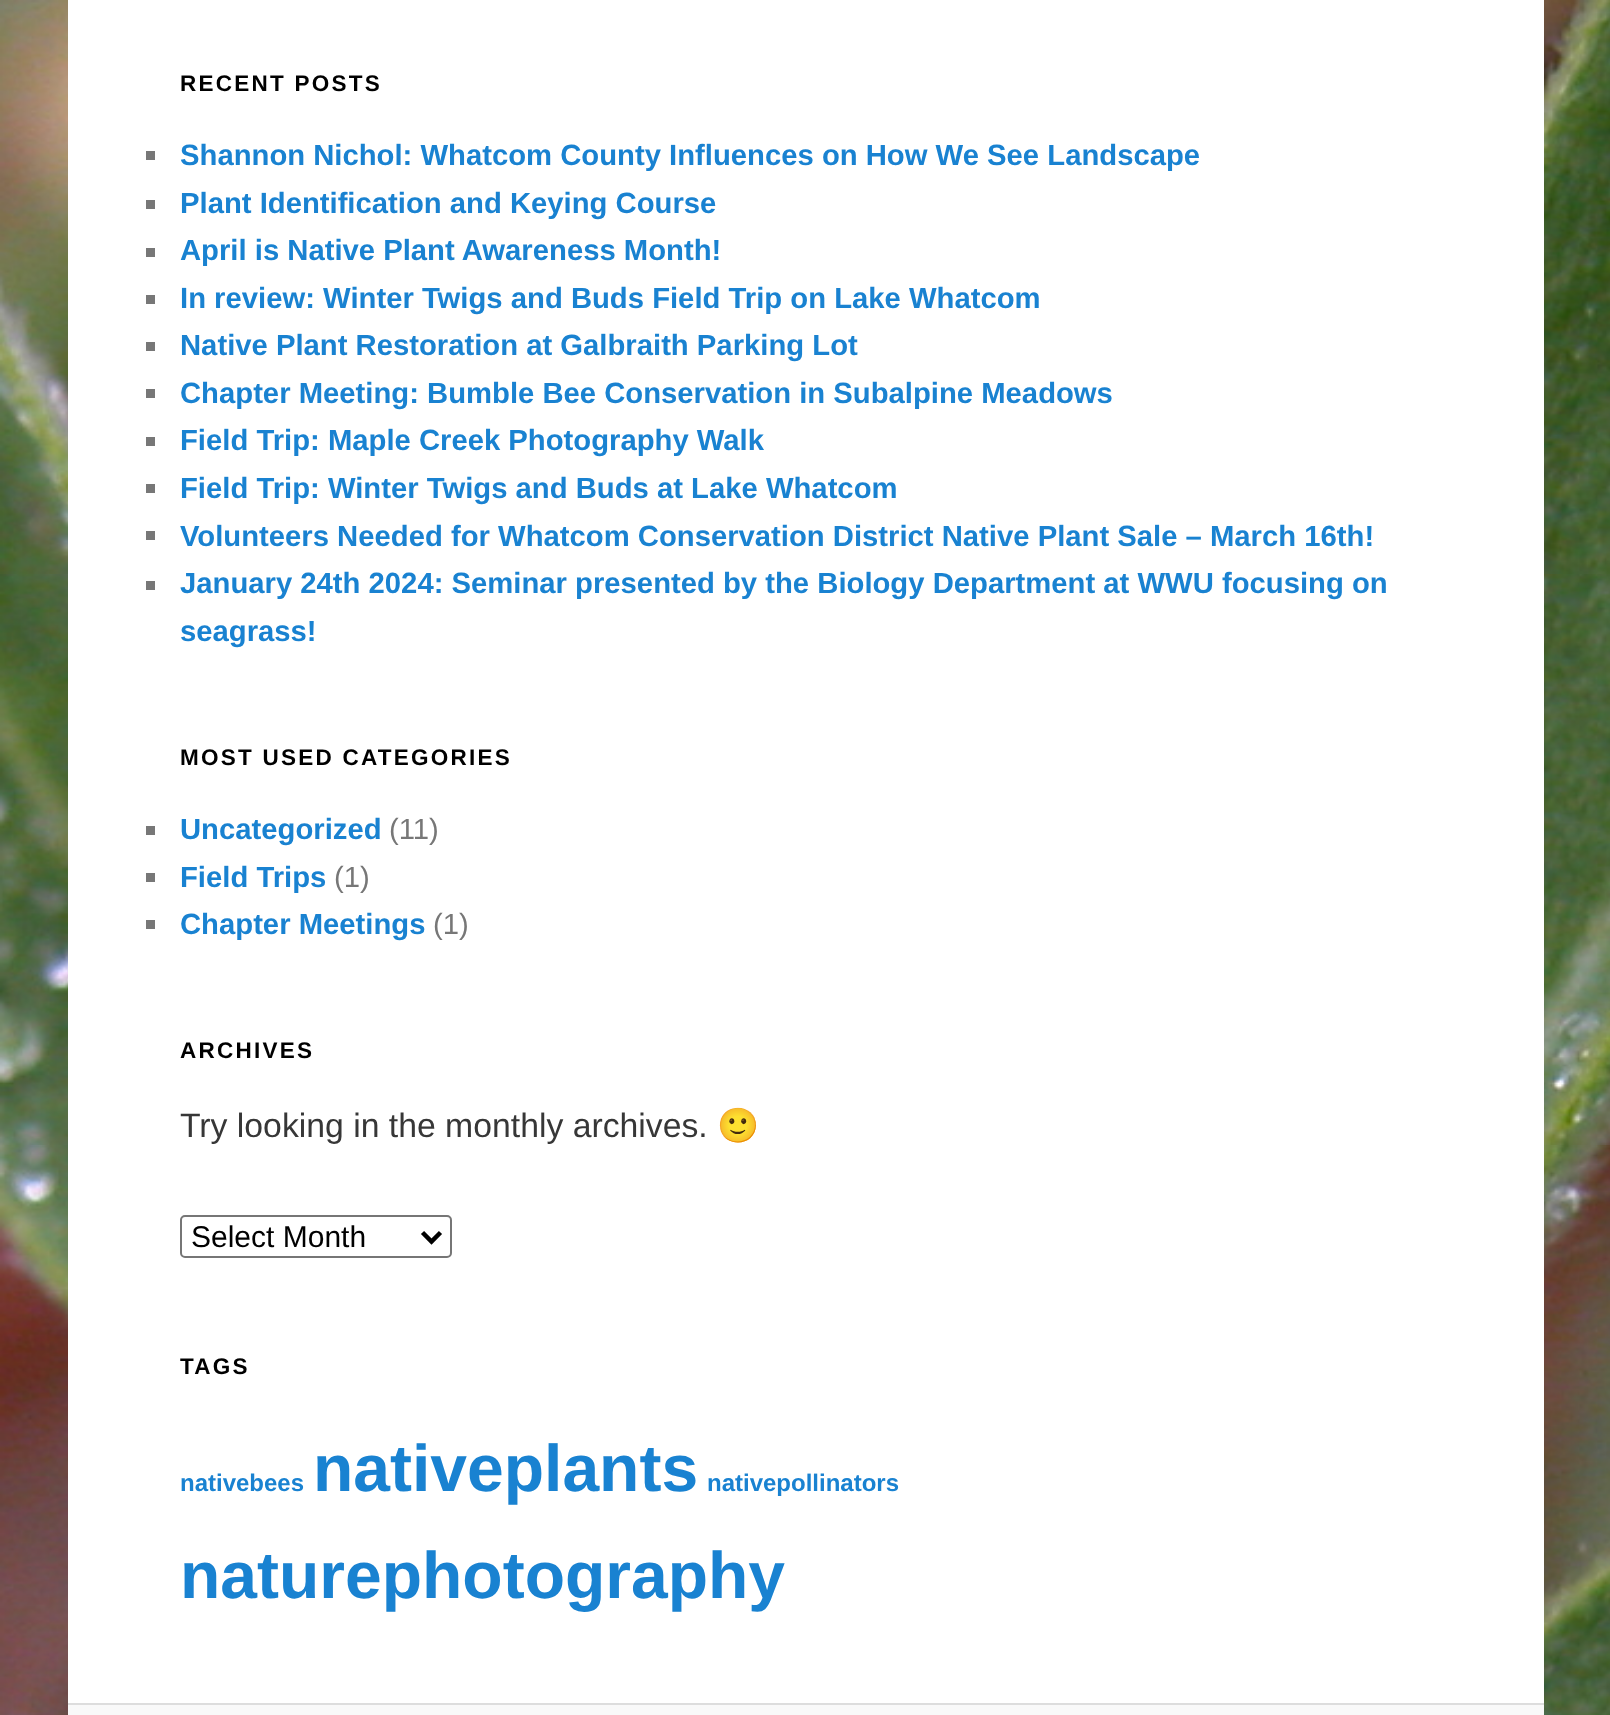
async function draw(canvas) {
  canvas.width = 1610
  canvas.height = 1715
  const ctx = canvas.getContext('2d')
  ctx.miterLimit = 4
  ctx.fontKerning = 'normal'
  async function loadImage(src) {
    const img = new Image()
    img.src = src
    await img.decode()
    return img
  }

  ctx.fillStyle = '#fff'
  ctx.fillRect(0, 0, 1610, 1715)
  ctx.drawImage(await loadImage('image0.png'), 0, 0, 1610, 1715)
  ctx.fillRect(68, 0, 1476, 1703)
  ctx.letterSpacing = '2.25px'
  ctx.font = 'bold 22.5px Liberation Sans'
  ctx.fillStyle = '#000'
  ctx.fillText('RECENT POSTS', 180, 91)
  ctx.fillStyle = '#777'
  ctx.fillRect(146, 151, 9, 9)
  ctx.letterSpacing = '0px'
  ctx.font = 'bold 29.25px Liberation Sans'
  ctx.fillStyle = '#1982d1'
  ctx.fillText('Shannon Nichol: Whatcom County Influences on How We See Landscape', 180, 165)
  ctx.fillStyle = '#777'
  ctx.fillRect(146, 200, 9, 9)
  ctx.fillStyle = '#1982d1'
  ctx.fillText('Plant Identification and Keying Course', 180, 213)
  ctx.fillStyle = '#777'
  ctx.fillRect(146, 248, 9, 9)
  ctx.fillStyle = '#1982d1'
  ctx.fillText('April is Native Plant Awareness Month!', 180, 260)
  ctx.fillStyle = '#777'
  ctx.fillRect(146, 295, 9, 9)
  ctx.fillStyle = '#1982d1'
  ctx.fillText('In review: Winter Twigs and Buds Field Trip on Lake Whatcom', 180, 308)
  ctx.fillStyle = '#777'
  ctx.fillRect(146, 342, 9, 9)
  ctx.fillStyle = '#1982d1'
  ctx.fillText('Native Plant Restoration at Galbraith Parking Lot', 180, 355)
  ctx.fillStyle = '#777'
  ctx.fillRect(146, 389, 9, 9)
  ctx.fillStyle = '#1982d1'
  ctx.fillText('Chapter Meeting: Bumble Bee Conservation in Subalpine Meadows', 180, 403)
  ctx.fillStyle = '#777'
  ctx.fillRect(146, 437, 9, 9)
  ctx.fillStyle = '#1982d1'
  ctx.fillText('Field Trip: Maple Creek Photography Walk', 180, 450)
  ctx.fillStyle = '#777'
  ctx.fillRect(146, 484, 9, 9)
  ctx.fillStyle = '#1982d1'
  ctx.fillText('Field Trip: Winter Twigs and Buds at Lake Whatcom', 180, 498)
  ctx.fillStyle = '#777'
  ctx.fillRect(146, 531, 9, 9)
  ctx.fillStyle = '#1982d1'
  ctx.fillText('Volunteers Needed for Whatcom Conservation District Native Plant Sale – March 16th!', 180, 546)
  ctx.fillStyle = '#777'
  ctx.fillRect(146, 581, 9, 9)
  ctx.fillStyle = '#1982d1'
  ctx.fillText('January 24th 2024: Seminar presented by the Biology Department at WWU focusing on', 180, 593)
  ctx.fillText('seagrass!', 180, 641)
  ctx.letterSpacing = '2.25px'
  ctx.font = 'bold 22.5px Liberation Sans'
  ctx.fillStyle = '#000'
  ctx.fillText('MOST USED CATEGORIES', 180, 765)
  ctx.fillStyle = '#777'
  ctx.fillRect(146, 826, 9, 9)
  ctx.letterSpacing = '0px'
  ctx.font = 'bold 29.25px Liberation Sans'
  ctx.fillStyle = '#1982d1'
  ctx.fillText('Uncategorized', 180, 839)
  ctx.font = '29.25px Liberation Sans'
  ctx.fillStyle = '#777'
  ctx.fillText('(11)', 389, 839)
  ctx.fillRect(146, 873, 9, 9)
  ctx.font = 'bold 29.25px Liberation Sans'
  ctx.fillStyle = '#1982d1'
  ctx.fillText('Field Trips', 180, 887)
  ctx.font = '29.25px Liberation Sans'
  ctx.fillStyle = '#777'
  ctx.fillText('(1)', 334, 887)
  ctx.fillRect(146, 920, 9, 9)
  ctx.font = 'bold 29.25px Liberation Sans'
  ctx.fillStyle = '#1982d1'
  ctx.fillText('Chapter Meetings', 180, 934)
  ctx.font = '29.25px Liberation Sans'
  ctx.fillStyle = '#777'
  ctx.fillText('(1)', 433, 934)
  ctx.letterSpacing = '2.25px'
  ctx.font = 'bold 22.5px Liberation Sans'
  ctx.fillStyle = '#000'
  ctx.fillText('ARCHIVES', 180, 1058)
  ctx.letterSpacing = '0px'
  ctx.font = '33.75px Liberation Sans'
  ctx.fillStyle = '#373737'
  ctx.fillText('Try looking in the monthly archives.', 180, 1137)
  ctx.font = '33.75px Noto Color Emoji'
  ctx.fillText('🙂', 717, 1137)
  ctx.beginPath()
  ctx.roundRect(181, 1216, 270, 41, 4)
  ctx.strokeStyle = '#767676'
  ctx.lineWidth = 2
  ctx.stroke()
  ctx.beginPath()
  ctx.moveTo(422.5, 1232.5)
  ctx.lineTo(431.5, 1241.5)
  ctx.lineTo(440.5, 1232.5)
  ctx.strokeStyle = '#000'
  ctx.lineWidth = 4.5
  ctx.stroke()
  ctx.font = '30px Liberation Sans'
  ctx.fillStyle = '#000'
  ctx.fillText('Select Month', 191, 1247)
  ctx.letterSpacing = '2.25px'
  ctx.font = 'bold 22.5px Liberation Sans'
  ctx.fillText('TAGS', 180, 1374)
  ctx.letterSpacing = '0px'
  ctx.font = 'bold 24px Liberation Sans'
  ctx.fillStyle = '#1982d1'
  ctx.fillText('nativebees', 180, 1491)
  ctx.font = 'bold 66px Liberation Sans'
  ctx.fillText('nativeplants', 313, 1491)
  ctx.font = 'bold 24px Liberation Sans'
  ctx.fillText('nativepollinators', 707, 1491)
  ctx.font = 'bold 66px Liberation Sans'
  ctx.fillText('naturephotography', 180, 1598)
  ctx.fillStyle = '#f9f9f9'
  ctx.fillRect(68, 1705, 1476, 10)
  ctx.fillStyle = '#ddd'
  ctx.fillRect(68, 1703, 1476, 2)
}

draw(document.querySelector('canvas'))
